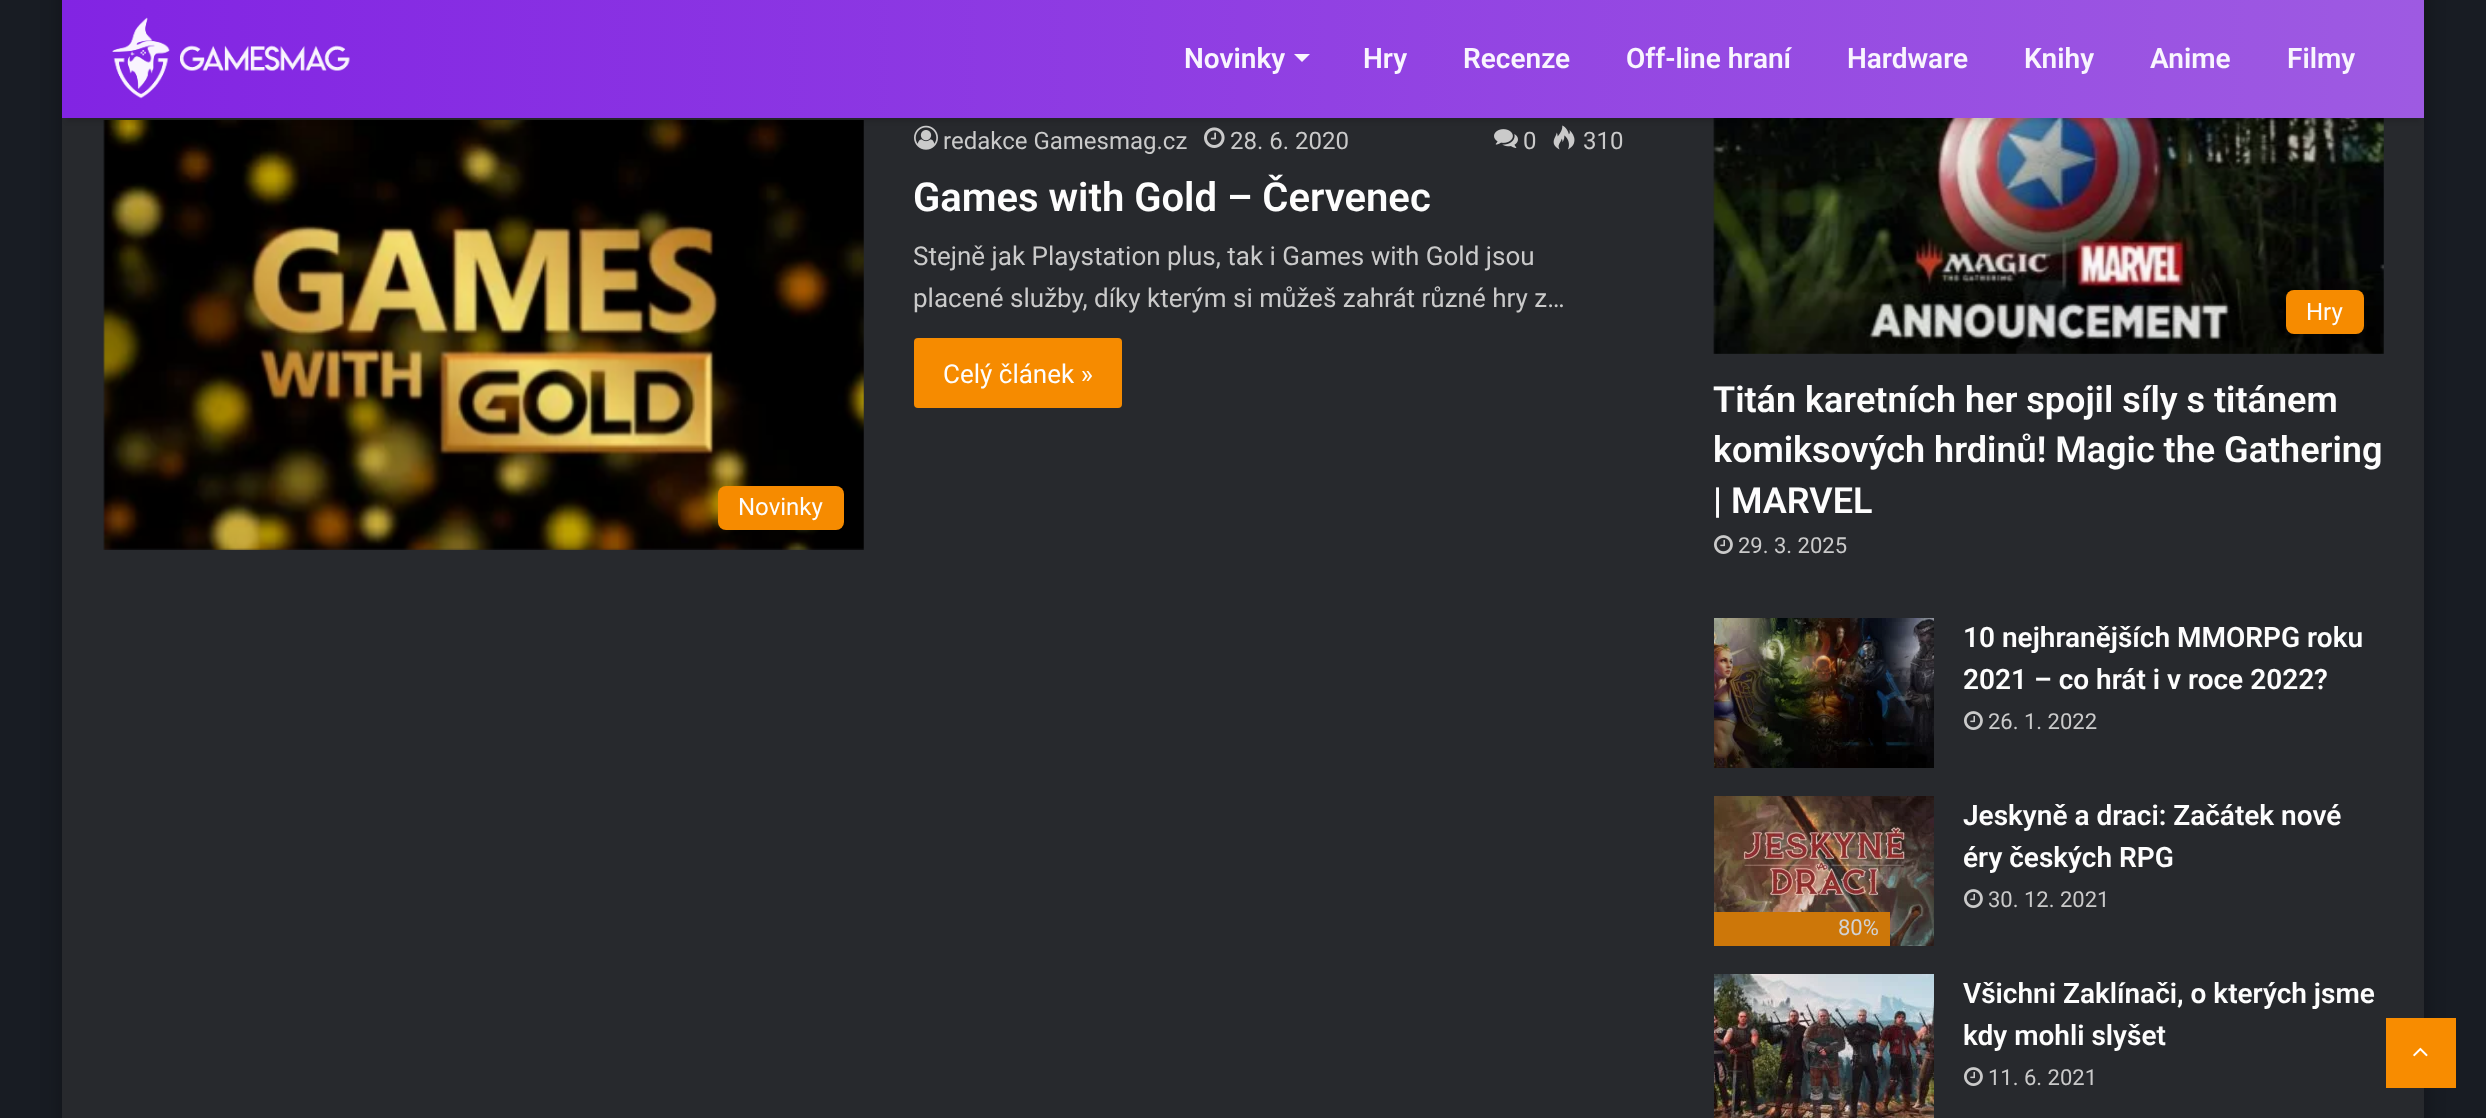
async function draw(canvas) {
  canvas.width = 2486
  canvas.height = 1118
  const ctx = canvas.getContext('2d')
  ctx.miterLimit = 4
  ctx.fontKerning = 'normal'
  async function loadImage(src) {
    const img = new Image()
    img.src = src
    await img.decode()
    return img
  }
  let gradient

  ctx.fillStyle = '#181c23'
  ctx.fillRect(0, 0, 2486, 1118)
  ctx.fillStyle = '#0000004d'
  ctx.filter = 'blur(10px)'
  ctx.beginPath()
  ctx.rect(62, -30, 2362, 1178)
  ctx.fill()
  ctx.filter = 'none'
  ctx.fillStyle = '#27292d'
  ctx.fillRect(62, 118, 2362, 1000)
  ctx.drawImage(await loadImage('image1.png'), 914, 125, 24, 25)
  ctx.drawImage(await loadImage('image2.png'), 1204, 127, 21, 21)
  ctx.drawImage(await loadImage('image4.png'), 1553, 125, 22, 25)
  ctx.drawImage(await loadImage('image5.png'), 103, 120, 761, 430)
  ctx.drawImage(await loadImage('image6.png'), 1713, 118, 671, 236)
  ctx.fillStyle = '#0000001a'
  ctx.filter = 'blur(2px)'
  ctx.beginPath()
  ctx.rect(66, 10, 2354, 112)
  ctx.fill()
  ctx.filter = 'none'
  gradient = ctx.createLinearGradient(62, 58, 2424, 58)
  gradient.addColorStop(0, '#8224e3')
  gradient.addColorStop(1, '#9e5ae2')
  ctx.fillStyle = gradient
  ctx.fillRect(62, 0, 2362, 118)
  ctx.drawImage(await loadImage('image0.png'), 112, 17, 238, 82)
  ctx.font = '600 28px Roboto'
  ctx.fillStyle = '#f9f5fe'
  ctx.fillText('Novinky', 1184, 68)
  ctx.fillStyle = '#faf5fe'
  ctx.beginPath()
  ctx.moveTo(1294, 54)
  ctx.lineTo(1310, 54)
  ctx.lineTo(1302, 62)
  ctx.closePath()
  ctx.fill()
  ctx.fillStyle = '#f9f5fe'
  ctx.fillText('Hry', 1363, 68)
  ctx.fillText('Recenze', 1463, 68)
  ctx.fillText('Off-line hraní', 1626, 68)
  ctx.fillText('Hardware', 1847, 68)
  ctx.fillText('Knihy', 2024, 68)
  ctx.fillText('Anime', 2150, 68)
  ctx.fillText('Filmy', 2287, 68)
  ctx.font = '24px Roboto'
  ctx.fillStyle = '#cacaca'
  ctx.fillText('redakce Gamesmag.cz', 943, 149)
  ctx.fillText('28. 6. 2020', 1230, 149)
  ctx.drawImage(await loadImage('image3.png'), 1494, 129, 24, 19)
  ctx.fillText('0', 1523, 149)
  ctx.fillText('310', 1583, 149)
  ctx.font = '600 40px Roboto'
  ctx.fillStyle = '#fdfdfd'
  ctx.fillText('Games with Gold – Červenec', 913, 211)
  ctx.font = '26px Roboto'
  ctx.fillStyle = '#cacaca'
  ctx.fillText('Stejně jak Playstation plus, tak i Games with Gold jsou', 913, 265)
  ctx.fillText('placené služby, díky kterým si můžeš zahrát různé hry z…', 913, 307)
  ctx.fillStyle = '#f68b00'
  ctx.beginPath()
  ctx.roundRect(914, 338, 208, 70, 4)
  ctx.fill()
  ctx.fillStyle = '#fdfdfd'
  ctx.fillText('Celý článek »', 943, 383)
  ctx.fillStyle = '#f68b00'
  ctx.beginPath()
  ctx.roundRect(718, 486, 126, 44, 8)
  ctx.fill()
  ctx.font = '24px Roboto'
  ctx.fillStyle = '#fdfdfd'
  ctx.fillText('Novinky', 738, 515)
  ctx.fillStyle = '#f68b00'
  ctx.beginPath()
  ctx.roundRect(2286, 290, 78, 44, 8)
  ctx.fill()
  ctx.fillStyle = '#fdfdfd'
  ctx.fillText('Hry', 2306, 320)
  ctx.font = '600 36px Roboto'
  ctx.fillText('Titán karetních her spojil síly s titánem', 1713, 412)
  ctx.fillText('komiksových hrdinů! Magic the Gathering', 1713, 462)
  ctx.fillText('| MARVEL', 1713, 513)
  ctx.drawImage(await loadImage('image7.png'), 1714, 535, 19, 19)
  ctx.font = '22px Roboto'
  ctx.fillStyle = '#cacaca'
  ctx.fillText('29. 3. 2025', 1738, 553)
  ctx.drawImage(await loadImage('image8.png'), 1714, 618, 220, 150)
  ctx.font = '600 28px Roboto'
  ctx.fillStyle = '#fdfdfd'
  ctx.fillText('10 nejhranějších MMORPG roku', 1963, 647)
  ctx.fillText('2021 – co hrát i v roce 2022?', 1963, 689)
  ctx.drawImage(await loadImage('image7.png'), 1964, 711, 19, 19)
  ctx.font = '22px Roboto'
  ctx.fillStyle = '#cacaca'
  ctx.fillText('26. 1. 2022', 1988, 729)
  ctx.font = '600 28px Roboto'
  ctx.fillStyle = '#fdfdfd'
  ctx.fillText('Jeskyně a draci: Začátek nové', 1963, 825)
  ctx.fillText('éry českých RPG', 1963, 867)
  ctx.drawImage(await loadImage('image7.png'), 1964, 889, 19, 19)
  ctx.font = '22px Roboto'
  ctx.fillStyle = '#cacaca'
  ctx.fillText('30. 12. 2021', 1988, 907)
  ctx.drawImage(await loadImage('image9.png'), 1714, 796, 220, 150)
  ctx.fillStyle = '#cd7709'
  ctx.fillRect(1714, 912, 176, 34)
  ctx.fillStyle = '#d2d2d3'
  ctx.fillText('80%', 1838, 935)
  ctx.drawImage(await loadImage('image10.png'), 1714, 974, 220, 144)
  ctx.font = '600 28px Roboto'
  ctx.fillStyle = '#fdfdfd'
  ctx.fillText('Všichni Zaklínači, o kterých jsme', 1963, 1003)
  ctx.fillText('kdy mohli slyšet', 1963, 1045)
  ctx.drawImage(await loadImage('image7.png'), 1964, 1067, 19, 19)
  ctx.font = '22px Roboto'
  ctx.fillStyle = '#cacaca'
  ctx.fillText('11. 6. 2021', 1988, 1085)
  ctx.fillStyle = '#f88c00'
  ctx.fillRect(2386, 1018, 70, 70)
  ctx.drawImage(await loadImage('image11.png'), 2413, 1047, 15, 10)
}

draw(document.querySelector('canvas'))
